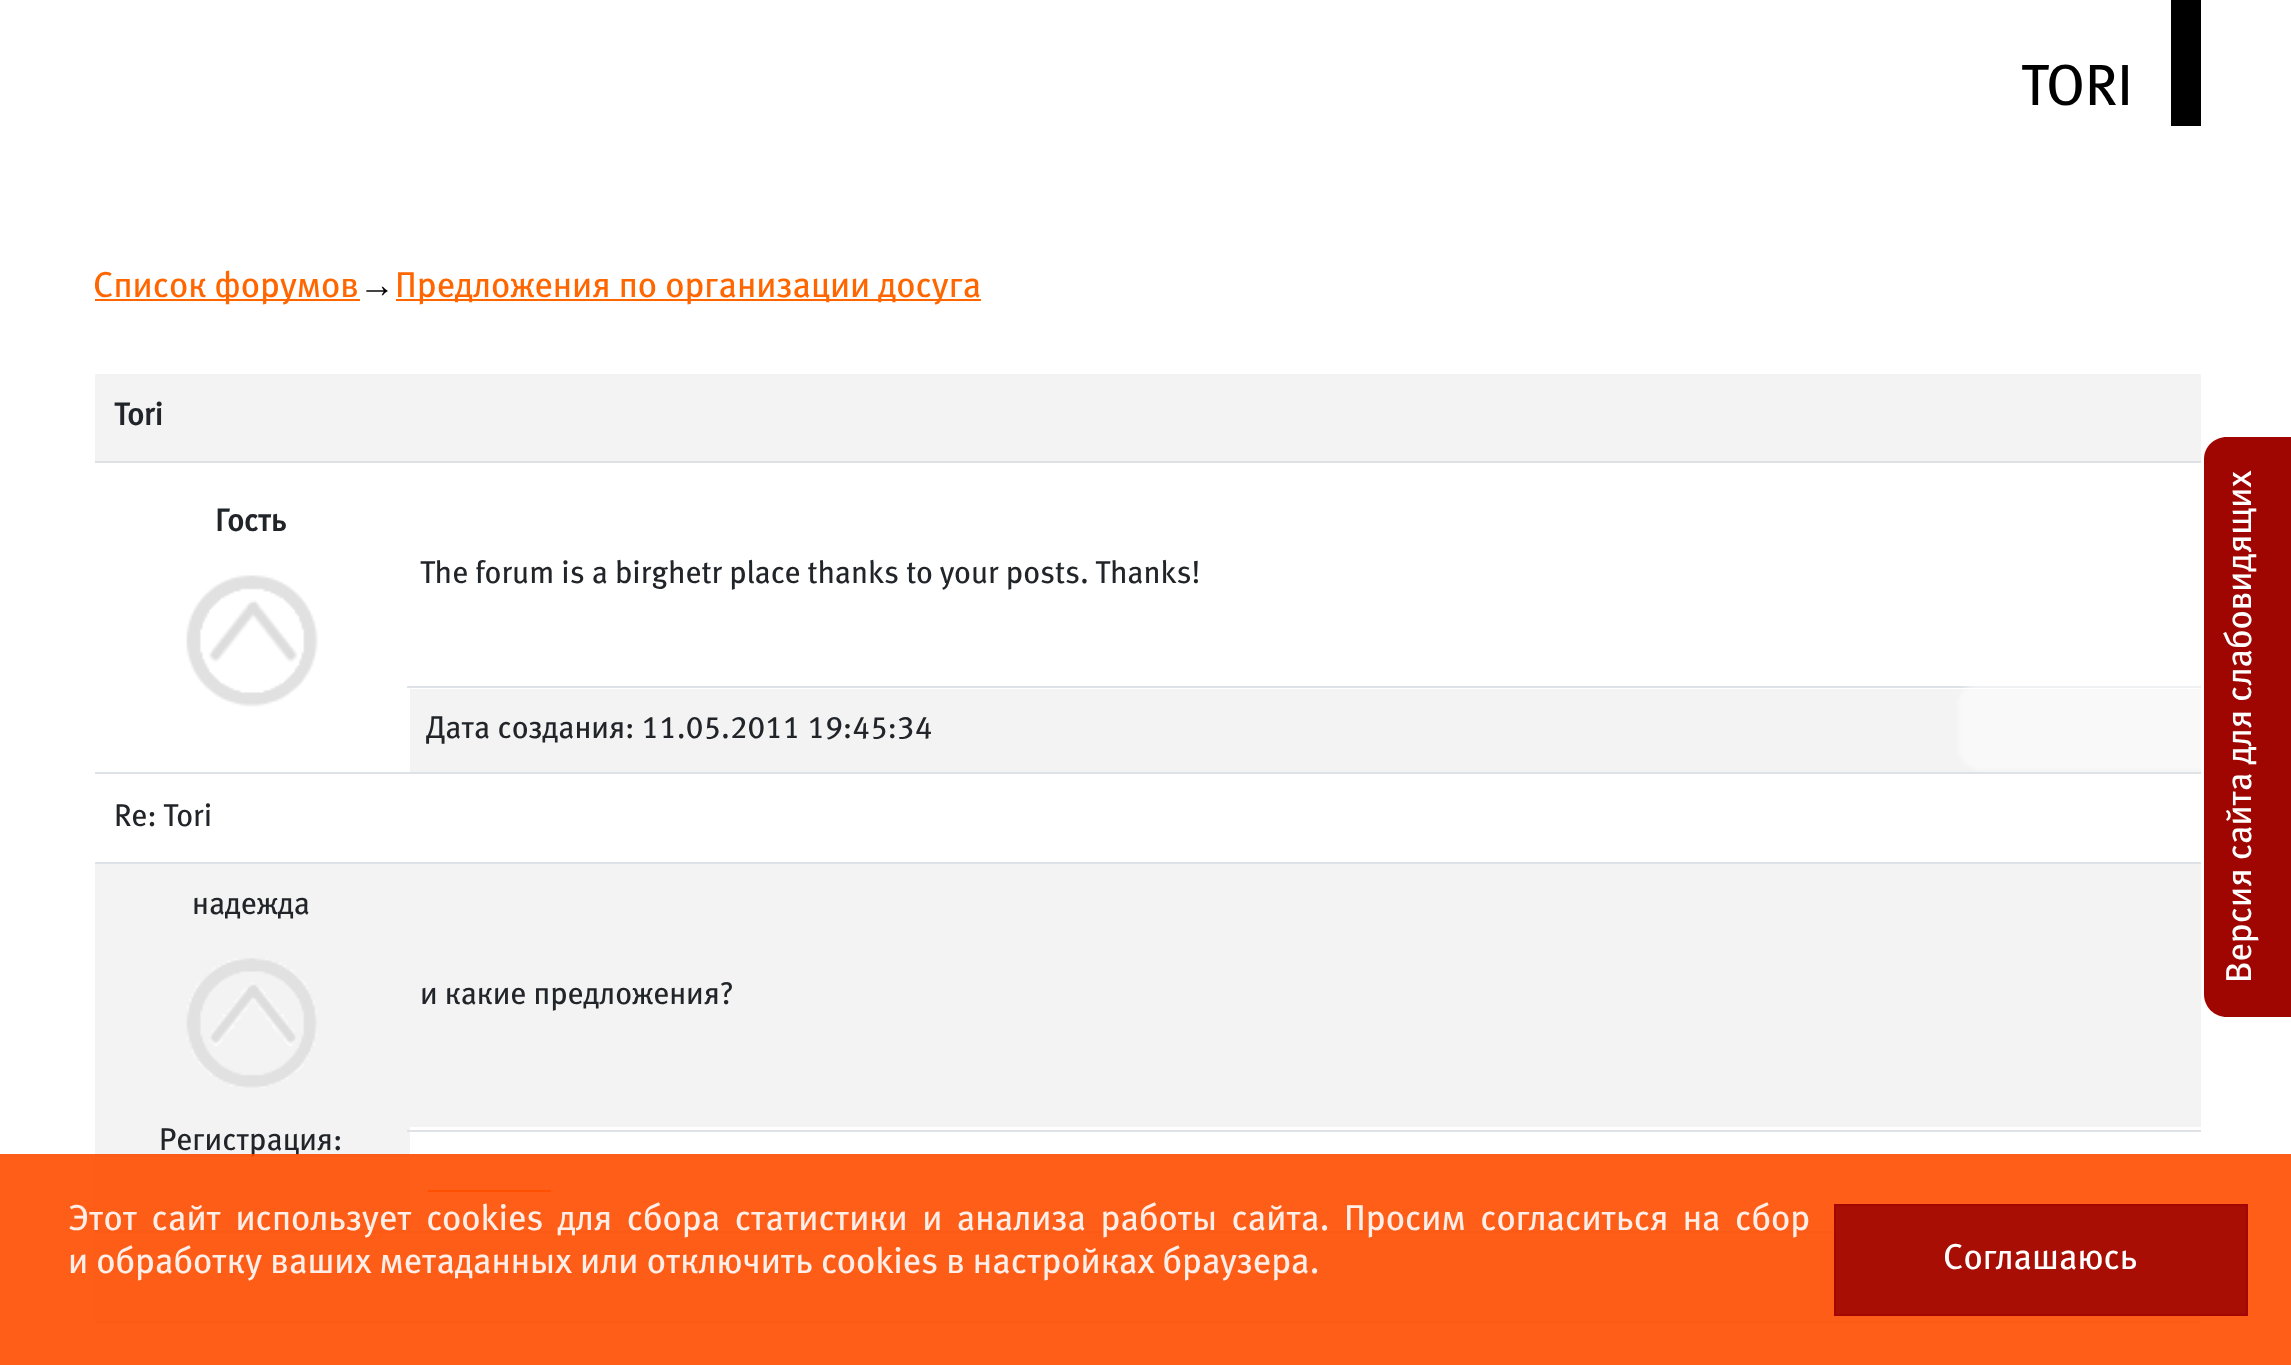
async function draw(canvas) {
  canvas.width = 2291
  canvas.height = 1365
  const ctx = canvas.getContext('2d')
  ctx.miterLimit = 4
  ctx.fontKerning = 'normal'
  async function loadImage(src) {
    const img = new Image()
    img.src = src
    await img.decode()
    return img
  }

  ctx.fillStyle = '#fff'
  ctx.fillRect(0, 0, 2291, 1365)
  ctx.fillStyle = '#000'
  ctx.fillRect(2171, 0, 30, 126)
  ctx.font = '58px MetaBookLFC'
  ctx.fillText('TORI', 2021, 105)
  ctx.fillStyle = '#f60'
  ctx.fillRect(95, 299, 265, 2)
  ctx.font = '36px MetaBookLFC'
  ctx.fillText('Список форумов', 93, 297)
  ctx.font = '36px Liberation Sans'
  ctx.fillStyle = '#000'
  ctx.fillText('→', 359, 297)
  ctx.fillStyle = '#f60'
  ctx.fillRect(396, 299, 585, 2)
  ctx.font = '36px MetaBookLFC'
  ctx.fillText('Предложения по организации досуга', 395, 297)
  ctx.fillStyle = '#f3f3f3'
  ctx.fillRect(95, 374, 2106, 87)
  ctx.fillStyle = '#dee2e6'
  ctx.fillRect(95, 461, 2106, 2)
  ctx.font = 'bold 31.5px MetaBookLFC'
  ctx.fillStyle = '#212529'
  ctx.fillText('Tori', 114, 425)
  ctx.fillText('Гость', 215, 531)
  ctx.drawImage(await loadImage('image0.png'), 186, 575, 132, 132)
  ctx.fillStyle = '#dee2e6'
  ctx.fillRect(407, 686, 1794, 2)
  ctx.font = '31.5px MetaBookLFC'
  ctx.fillStyle = '#212529'
  ctx.fillText('The forum is a birghetr place thanks to your posts. Thanks!', 420, 583)
  ctx.fillStyle = '#f3f3f3'
  ctx.fillRect(410, 689, 1791, 83)
  ctx.fillStyle = '#dee2e6'
  ctx.fillRect(95, 772, 2106, 2)
  ctx.fillStyle = '#212529'
  ctx.fillText('Дата создания: 11.05.2011 19:45:34', 426, 738)
  ctx.fillStyle = '#dee2e6'
  ctx.fillRect(95, 862, 2106, 2)
  ctx.fillStyle = '#212529'
  ctx.fillText('Re: Tori', 114, 826)
  ctx.fillStyle = '#f3f3f3'
  ctx.fillRect(95, 864, 315, 367)
  ctx.fillStyle = '#212529'
  ctx.fillText('надежда', 192, 914)
  ctx.drawImage(await loadImage('image1.png'), 186, 958, 131, 130)
  ctx.fillText('Регистрация:', 159, 1150)
  ctx.fillStyle = '#f3f3f3'
  ctx.fillRect(410, 864, 1791, 263)
  ctx.fillStyle = '#dee2e6'
  ctx.fillRect(407, 1130, 1794, 2)
  ctx.fillStyle = '#212529'
  ctx.fillText('и какие предложения?', 420, 1004)
  ctx.fillStyle = '#dee2e6'
  ctx.fillRect(95, 1231, 2106, 2)
  ctx.fillStyle = '#f60'
  ctx.fillRect(428, 1190, 123, 2)
  ctx.fillStyle = '#f3f3f3'
  ctx.fillRect(95, 1233, 2106, 88)
  ctx.fillStyle = '#dee2e6'
  ctx.fillRect(95, 1321, 2106, 2)
  ctx.fillStyle = '#ffffff80'
  ctx.filter = 'blur(2px)'
  ctx.beginPath()
  ctx.roundRect(1958, 682, 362, 88, 23)
  ctx.fill()
  ctx.filter = 'none'
  ctx.fillStyle = '#9f0602'
  ctx.beginPath()
  ctx.moveTo(2204, 994)
  ctx.lineTo(2204, 459)
  ctx.bezierCurveTo(2204, 447, 2214, 437, 2227, 437)
  ctx.lineTo(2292, 437)
  ctx.lineTo(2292, 1017)
  ctx.lineTo(2227, 1017)
  ctx.bezierCurveTo(2214, 1017, 2204, 1007, 2204, 994)
  ctx.closePath()
  ctx.fill()
  ctx.font = '36px MetaBookLFC'
  ctx.fillStyle = '#fff'
  ctx.save()
  ctx.translate(2251, 983)
  ctx.rotate(-90 * Math.PI / 180)
  ctx.fillText('Версия сайта для слабовидящих', 0, 0)
  ctx.restore()
  ctx.fillStyle = '#ff4c00e6'
  ctx.fillRect(0, 1154, 2291, 211)
  ctx.wordSpacing = '6.4px'
  ctx.fillStyle = '#ffefe8'
  ctx.fillText('Этот сайт использует cookies для сбора статистики и анализа работы сайта. Просим согласиться на сбор', 68, 1230)
  ctx.wordSpacing = '0px'
  ctx.fillText('и обработку ваших метаданных или отключить cookies в настройках браузера.', 68, 1273)
  ctx.fillStyle = '#9f0602e6'
  ctx.beginPath()
  ctx.rect(1835, 1205, 412, 110)
  ctx.fill()
  ctx.strokeStyle = '#a00702'
  ctx.lineWidth = 2
  ctx.stroke()
  ctx.fillStyle = '#fff'
  ctx.fillText('Соглашаюсь', 1943, 1269)
}

draw(document.querySelector('canvas'))
